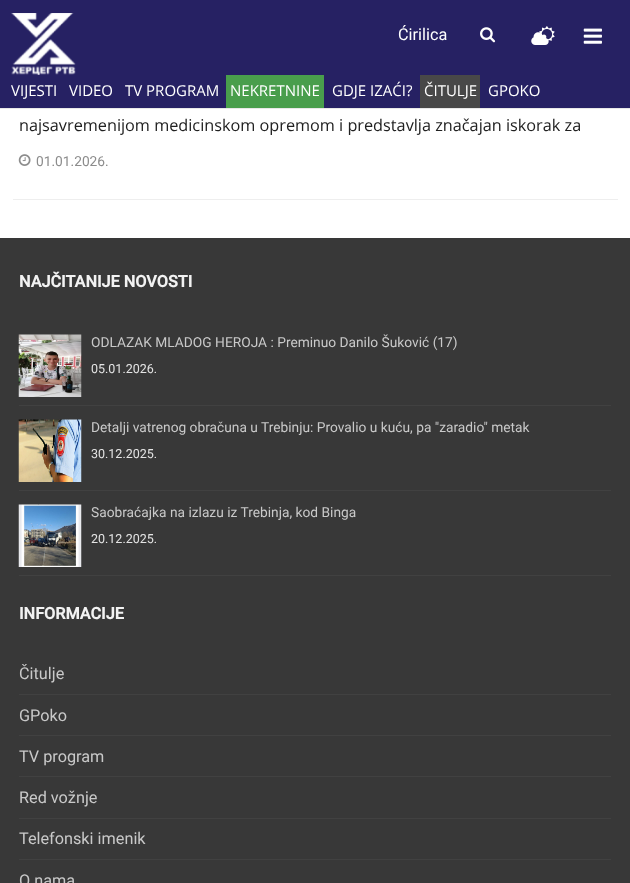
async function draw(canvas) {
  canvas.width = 630
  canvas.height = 883
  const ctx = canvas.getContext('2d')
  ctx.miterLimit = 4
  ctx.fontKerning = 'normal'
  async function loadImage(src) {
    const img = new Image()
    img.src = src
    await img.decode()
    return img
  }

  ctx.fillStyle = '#fff'
  ctx.fillRect(0, 0, 630, 883)
  ctx.fillStyle = '#262163'
  ctx.fillRect(0, 0, 630, 108)
  ctx.fillStyle = '#e8e8e8'
  ctx.fillRect(0, 108, 630, 1)
  ctx.drawImage(await loadImage('image0.png'), 11, 13, 65, 62)
  ctx.font = '16.25px Roboto'
  ctx.fillStyle = '#fff'
  ctx.fillText('Ćirilica', 398, 40)
  ctx.drawImage(await loadImage('image1.png'), 480, 27, 16, 16)
  ctx.drawImage(await loadImage('image3.png'), 531, 32, 18, 13)
  ctx.drawImage(await loadImage('image2.png'), 539, 26, 16, 15)
  ctx.drawImage(await loadImage('image4.png'), 583, 28, 19, 16)
  ctx.font = '15px Open Sans'
  ctx.fillText('VIJESTI', 11, 96)
  ctx.fillText('VIDEO', 69, 96)
  ctx.fillText('TV PROGRAM', 125, 96)
  ctx.fillStyle = '#499e4c'
  ctx.fillRect(226, 75, 98, 33)
  ctx.fillStyle = '#fff'
  ctx.fillText('NEKRETNINE', 230, 96)
  ctx.fillText('GDJE IZAĆI?', 332, 96)
  ctx.fillStyle = '#484848'
  ctx.fillRect(420, 75, 60, 33)
  ctx.fillStyle = '#fff'
  ctx.fillText('ČITULJE', 424, 96)
  ctx.fillText('GPOKO', 488, 96)
  ctx.font = '16.25px Open Sans'
  ctx.fillStyle = '#212121'
  ctx.fillText('najsavremenijom medicinskom opremom i predstavlja značajan iskorak za', 19, 131)
  ctx.drawImage(await loadImage('image5.png'), 18, 154, 13, 12)
  ctx.font = '13.75px Roboto'
  ctx.fillStyle = '#8c8c8c'
  ctx.fillText('01.01.2026.', 36, 166)
  ctx.fillStyle = '#eee'
  ctx.fillRect(13, 199, 605, 1)
  ctx.fillStyle = '#383838'
  ctx.fillRect(0, 238, 630, 645)
  ctx.font = 'bold 16.25px Roboto'
  ctx.fillStyle = '#f2f2f2'
  ctx.fillText('NAJČITANIJE NOVOSTI', 19, 287)
  ctx.fillStyle = '#414141'
  ctx.fillRect(19, 405, 592, 1)
  ctx.drawImage(await loadImage('image6.png'), 18, 334, 64, 63)
  ctx.font = '13.75px Roboto'
  ctx.fillStyle = '#c9c9c9'
  ctx.fillText('ODLAZAK MLADOG HEROJA : Preminuo Danilo Šuković (17)', 91, 347)
  ctx.font = '12.5px Roboto'
  ctx.fillStyle = '#e4e4e4'
  ctx.fillText('05.01.2026.', 91, 373)
  ctx.fillStyle = '#414141'
  ctx.fillRect(19, 490, 592, 1)
  ctx.drawImage(await loadImage('image7.png'), 18, 419, 64, 63)
  ctx.font = '13.75px Roboto'
  ctx.fillStyle = '#c9c9c9'
  ctx.fillText('Detalji vatrenog obračuna u Trebinju: Provalio u kuću, pa "zaradio" metak', 91, 432)
  ctx.font = '12.5px Roboto'
  ctx.fillStyle = '#e4e4e4'
  ctx.fillText('30.12.2025.', 91, 458)
  ctx.fillStyle = '#414141'
  ctx.fillRect(19, 575, 592, 1)
  ctx.drawImage(await loadImage('image8.png'), 18, 504, 64, 63)
  ctx.font = '13.75px Roboto'
  ctx.fillStyle = '#c9c9c9'
  ctx.fillText('Saobraćajka na izlazu iz Trebinja, kod Binga', 91, 517)
  ctx.font = '12.5px Roboto'
  ctx.fillStyle = '#e4e4e4'
  ctx.fillText('20.12.2025.', 91, 543)
  ctx.font = 'bold 16.25px Roboto'
  ctx.fillStyle = '#f2f2f2'
  ctx.fillText('INFORMACIJE', 19, 619)
  ctx.fillStyle = '#414141'
  ctx.fillRect(19, 694, 592, 1)
  ctx.font = '16.25px Roboto'
  ctx.fillStyle = '#c9c9c9'
  ctx.fillText('Čitulje', 19, 679)
  ctx.fillStyle = '#414141'
  ctx.fillRect(19, 735, 592, 1)
  ctx.fillStyle = '#c9c9c9'
  ctx.fillText('GPoko', 19, 721)
  ctx.fillStyle = '#414141'
  ctx.fillRect(19, 776, 592, 1)
  ctx.fillStyle = '#c9c9c9'
  ctx.fillText('TV program', 19, 762)
  ctx.fillStyle = '#414141'
  ctx.fillRect(19, 818, 592, 1)
  ctx.fillStyle = '#c9c9c9'
  ctx.fillText('Red vožnje', 19, 803)
  ctx.fillStyle = '#414141'
  ctx.fillRect(19, 859, 592, 1)
  ctx.fillStyle = '#c9c9c9'
  ctx.fillText('Telefonski imenik', 19, 844)
  ctx.fillText('O nama', 19, 886)
}

draw(document.querySelector('canvas'))
